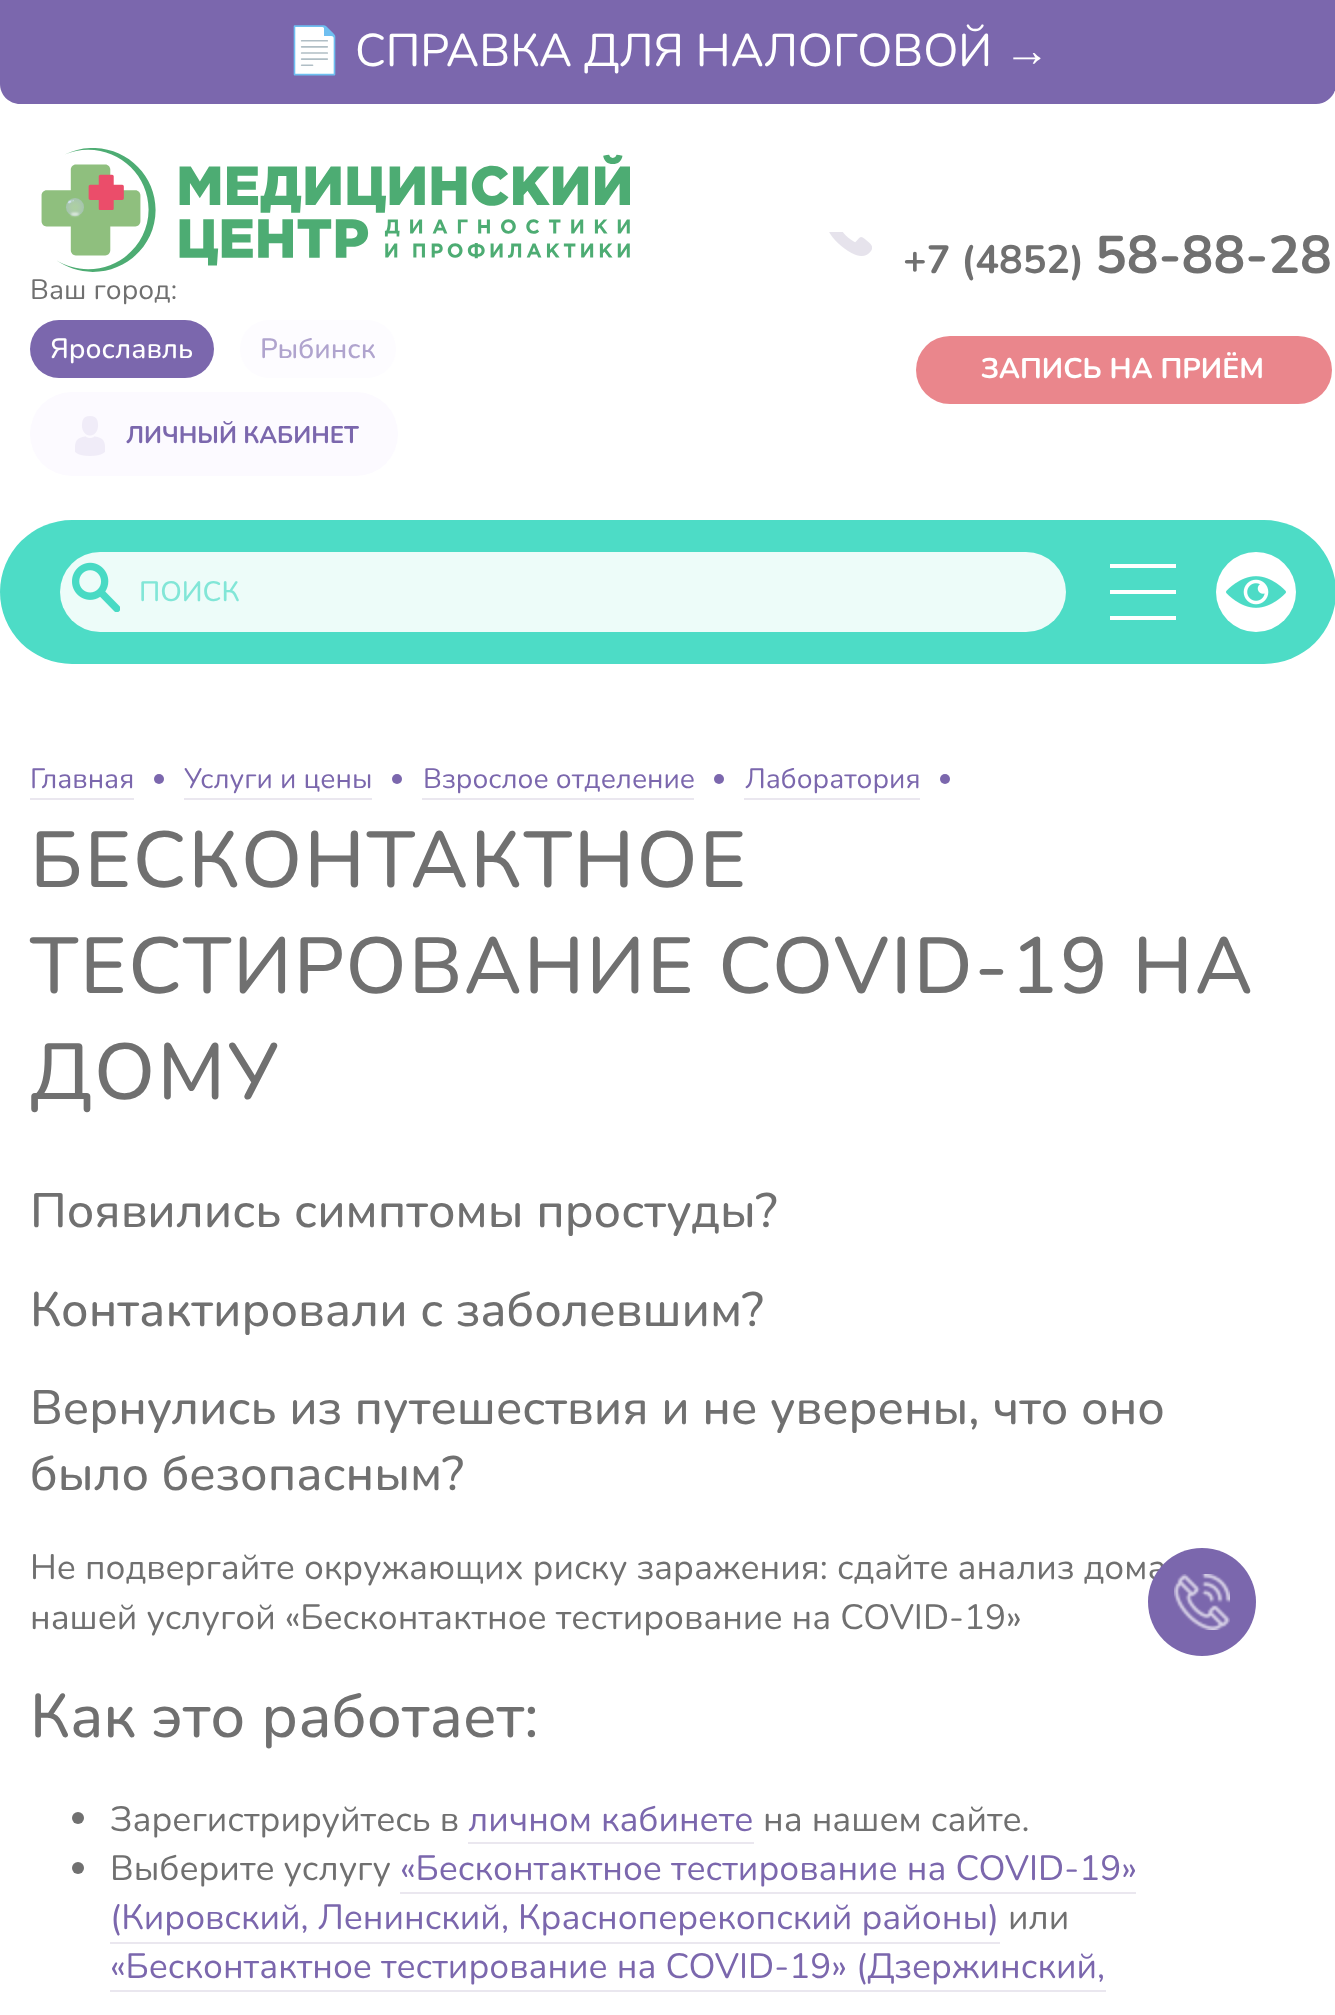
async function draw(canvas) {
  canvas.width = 1335
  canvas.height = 2015
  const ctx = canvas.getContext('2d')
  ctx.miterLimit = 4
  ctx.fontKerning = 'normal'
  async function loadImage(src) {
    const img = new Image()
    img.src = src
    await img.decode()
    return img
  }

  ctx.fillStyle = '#fff'
  ctx.fillRect(0, 0, 1335, 2015)
  ctx.fillStyle = '#7b67ad'
  ctx.beginPath()
  ctx.moveTo(0, 0)
  ctx.lineTo(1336, 0)
  ctx.lineTo(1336, 84)
  ctx.bezierCurveTo(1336, 95, 1327, 104, 1316, 104)
  ctx.lineTo(20, 104)
  ctx.bezierCurveTo(9, 104, 0, 95, 0, 84)
  ctx.closePath()
  ctx.fill()
  ctx.font = '45.75px Noto Color Emoji'
  ctx.fillStyle = '#fff'
  ctx.fillText('📄', 286, 66)
  ctx.font = '45.75px Nunito'
  ctx.fillText('СПРАВКА ДЛЯ НАЛОГОВОЙ', 355, 66)
  ctx.font = '45.75px Liberation Sans'
  ctx.fillText('→', 1004, 66)
  ctx.drawImage(await loadImage('image0.png'), 41, 148, 589, 124)
  ctx.font = '28px Nunito'
  ctx.fillStyle = '#707070'
  ctx.fillText('Ваш город:', 30, 299)
  ctx.fillStyle = '#7b67ad'
  ctx.beginPath()
  ctx.roundRect(30, 320, 184, 58, 29)
  ctx.fill()
  ctx.font = '500 28px Nunito'
  ctx.fillStyle = '#fff'
  ctx.fillText('Ярославль', 50, 358)
  ctx.fillStyle = '#fdfcff'
  ctx.beginPath()
  ctx.roundRect(240, 320, 156, 58, 29)
  ctx.fill()
  ctx.fillStyle = '#b0a4ce'
  ctx.fillText('Рыбинск', 260, 358)
  ctx.fillStyle = '#fcfaff'
  ctx.beginPath()
  ctx.roundRect(30, 392, 368, 84, 42)
  ctx.fill()
  ctx.drawImage(await loadImage('image1.png'), 75, 416, 30, 40)
  ctx.font = 'bold 24px Nunito'
  ctx.fillStyle = '#7b67ad'
  ctx.fillText('ЛИЧНЫЙ КАБИНЕТ', 126, 443)
  ctx.drawImage(await loadImage('image2.png'), 829, 232, 43, 24)
  ctx.font = 'bold 39.5px Nunito'
  ctx.fillStyle = '#707070'
  ctx.fillText('+7 (4852)', 903, 273)
  ctx.font = 'bold 53px Nunito'
  ctx.fillText('58-88-28', 1095, 273)
  ctx.fillStyle = '#ea868c'
  ctx.beginPath()
  ctx.roundRect(916, 336, 416, 68, 34)
  ctx.fill()
  ctx.font = 'bold 28.5px Nunito'
  ctx.fillStyle = '#fff'
  ctx.fillText('ЗАПИСЬ НА ПРИЁМ', 981, 378)
  ctx.fillStyle = '#4ddcc6'
  ctx.beginPath()
  ctx.roundRect(0, 520, 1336, 144, 72)
  ctx.fill()
  ctx.fillStyle = '#edfcf9'
  ctx.beginPath()
  ctx.roundRect(60, 552, 1006, 80, 40)
  ctx.fill()
  ctx.drawImage(await loadImage('image3.png'), 72, 562, 48, 50)
  ctx.font = '500 28px Nunito'
  ctx.fillStyle = '#82e6d7'
  ctx.fillText('ПОИСК', 139, 601)
  ctx.fillStyle = '#fff'
  ctx.fillRect(1110, 564, 66, 4)
  ctx.fillRect(1110, 590, 66, 4)
  ctx.fillRect(1110, 616, 66, 4)
  ctx.beginPath()
  ctx.arc(1256, 592, 40, 0, 2 * Math.PI)
  ctx.fill()
  ctx.drawImage(await loadImage('image4.png'), 1226, 576, 60, 32)
  ctx.font = '28px Nunito'
  ctx.fillStyle = '#7b67ad'
  ctx.fillText('Главная', 30, 788)
  ctx.fillStyle = '#eae7ef'
  ctx.fillRect(30, 798, 104, 2)
  ctx.fillStyle = '#7b67ad'
  ctx.beginPath()
  ctx.arc(159, 779, 5, 0, 2 * Math.PI)
  ctx.fill()
  ctx.fillText('Услуги и цены', 184, 788)
  ctx.fillStyle = '#eae7ef'
  ctx.fillRect(184, 798, 188, 2)
  ctx.fillStyle = '#7b67ad'
  ctx.beginPath()
  ctx.arc(397, 779, 5, 0, 2 * Math.PI)
  ctx.fill()
  ctx.fillText('Взрослое отделение', 423, 788)
  ctx.fillStyle = '#eae7ef'
  ctx.fillRect(422, 798, 272, 2)
  ctx.fillStyle = '#7b67ad'
  ctx.beginPath()
  ctx.arc(719, 779, 5, 0, 2 * Math.PI)
  ctx.fill()
  ctx.fillText('Лаборатория', 745, 788)
  ctx.fillStyle = '#eae7ef'
  ctx.fillRect(744, 798, 176, 2)
  ctx.fillStyle = '#7b67ad'
  ctx.beginPath()
  ctx.arc(945, 779, 5, 0, 2 * Math.PI)
  ctx.fill()
  ctx.letterSpacing = '2px'
  ctx.font = '500 79.25px Nunito'
  ctx.fillStyle = '#707070'
  ctx.fillText('БЕСКОНТАКТНОЕ', 30, 887)
  ctx.fillText('ТЕСТИРОВАНИЕ COVID-19 НА', 30, 993)
  ctx.fillText('ДОМУ', 30, 1099)
  ctx.letterSpacing = '0px'
  ctx.font = '500 48.4px Nunito'
  ctx.fillText('Появились симптомы простуды?', 30, 1227)
  ctx.fillText('Контактировали с заболевшим?', 30, 1326)
  ctx.fillText('Вернулись из путешествия и не уверены, что оно', 30, 1424)
  ctx.fillText('было безопасным?', 30, 1490)
  ctx.font = '35.2px Nunito'
  ctx.fillText('Не подвергайте окружающих риску заражения: сдайте анализ дома', 30, 1579)
  ctx.fillText('нашей услугой «Бесконтактное тестирование на COVID-19»', 30, 1629)
  ctx.font = '500 61.5px Nunito'
  ctx.fillText('Как это работает:', 30, 1737)
  ctx.beginPath()
  ctx.arc(78, 1818, 6, 0, 2 * Math.PI)
  ctx.fill()
  ctx.font = '35.2px Nunito'
  ctx.fillText('Зарегистрируйтесь в', 110, 1831)
  ctx.fillStyle = '#7b67ad'
  ctx.fillText('личном кабинете', 468, 1831)
  ctx.fillStyle = '#eae7ef'
  ctx.fillRect(468, 1842, 286, 2)
  ctx.fillStyle = '#707070'
  ctx.fillText('на нашем сайте.', 763, 1831)
  ctx.beginPath()
  ctx.arc(78, 1868, 6, 0, 2 * Math.PI)
  ctx.fill()
  ctx.fillText('Выберите услугу', 110, 1880)
  ctx.fillStyle = '#7b67ad'
  ctx.fillText('«Бесконтактное тестирование на COVID-19»', 400, 1880)
  ctx.fillStyle = '#eae7ef'
  ctx.fillRect(400, 1892, 736, 2)
  ctx.fillStyle = '#7b67ad'
  ctx.fillText('(Кировский, Ленинский, Красноперекопский районы)', 110, 1929)
  ctx.fillStyle = '#eae7ef'
  ctx.fillRect(110, 1942, 890, 2)
  ctx.fillStyle = '#707070'
  ctx.fillText('или', 1008, 1929)
  ctx.fillStyle = '#7b67ad'
  ctx.fillText('«Бесконтактное тестирование на COVID-19» (Дзержинский,', 110, 1978)
  ctx.fillStyle = '#eae7ef'
  ctx.fillRect(110, 1990, 996, 2)
  ctx.fillStyle = '#7b67ad'
  ctx.beginPath()
  ctx.arc(1202, 1602, 54, 0, 2 * Math.PI)
  ctx.fill()
  ctx.drawImage(await loadImage('image5.png'), 1174, 1574, 56, 56)
}

draw(document.querySelector('canvas'))
